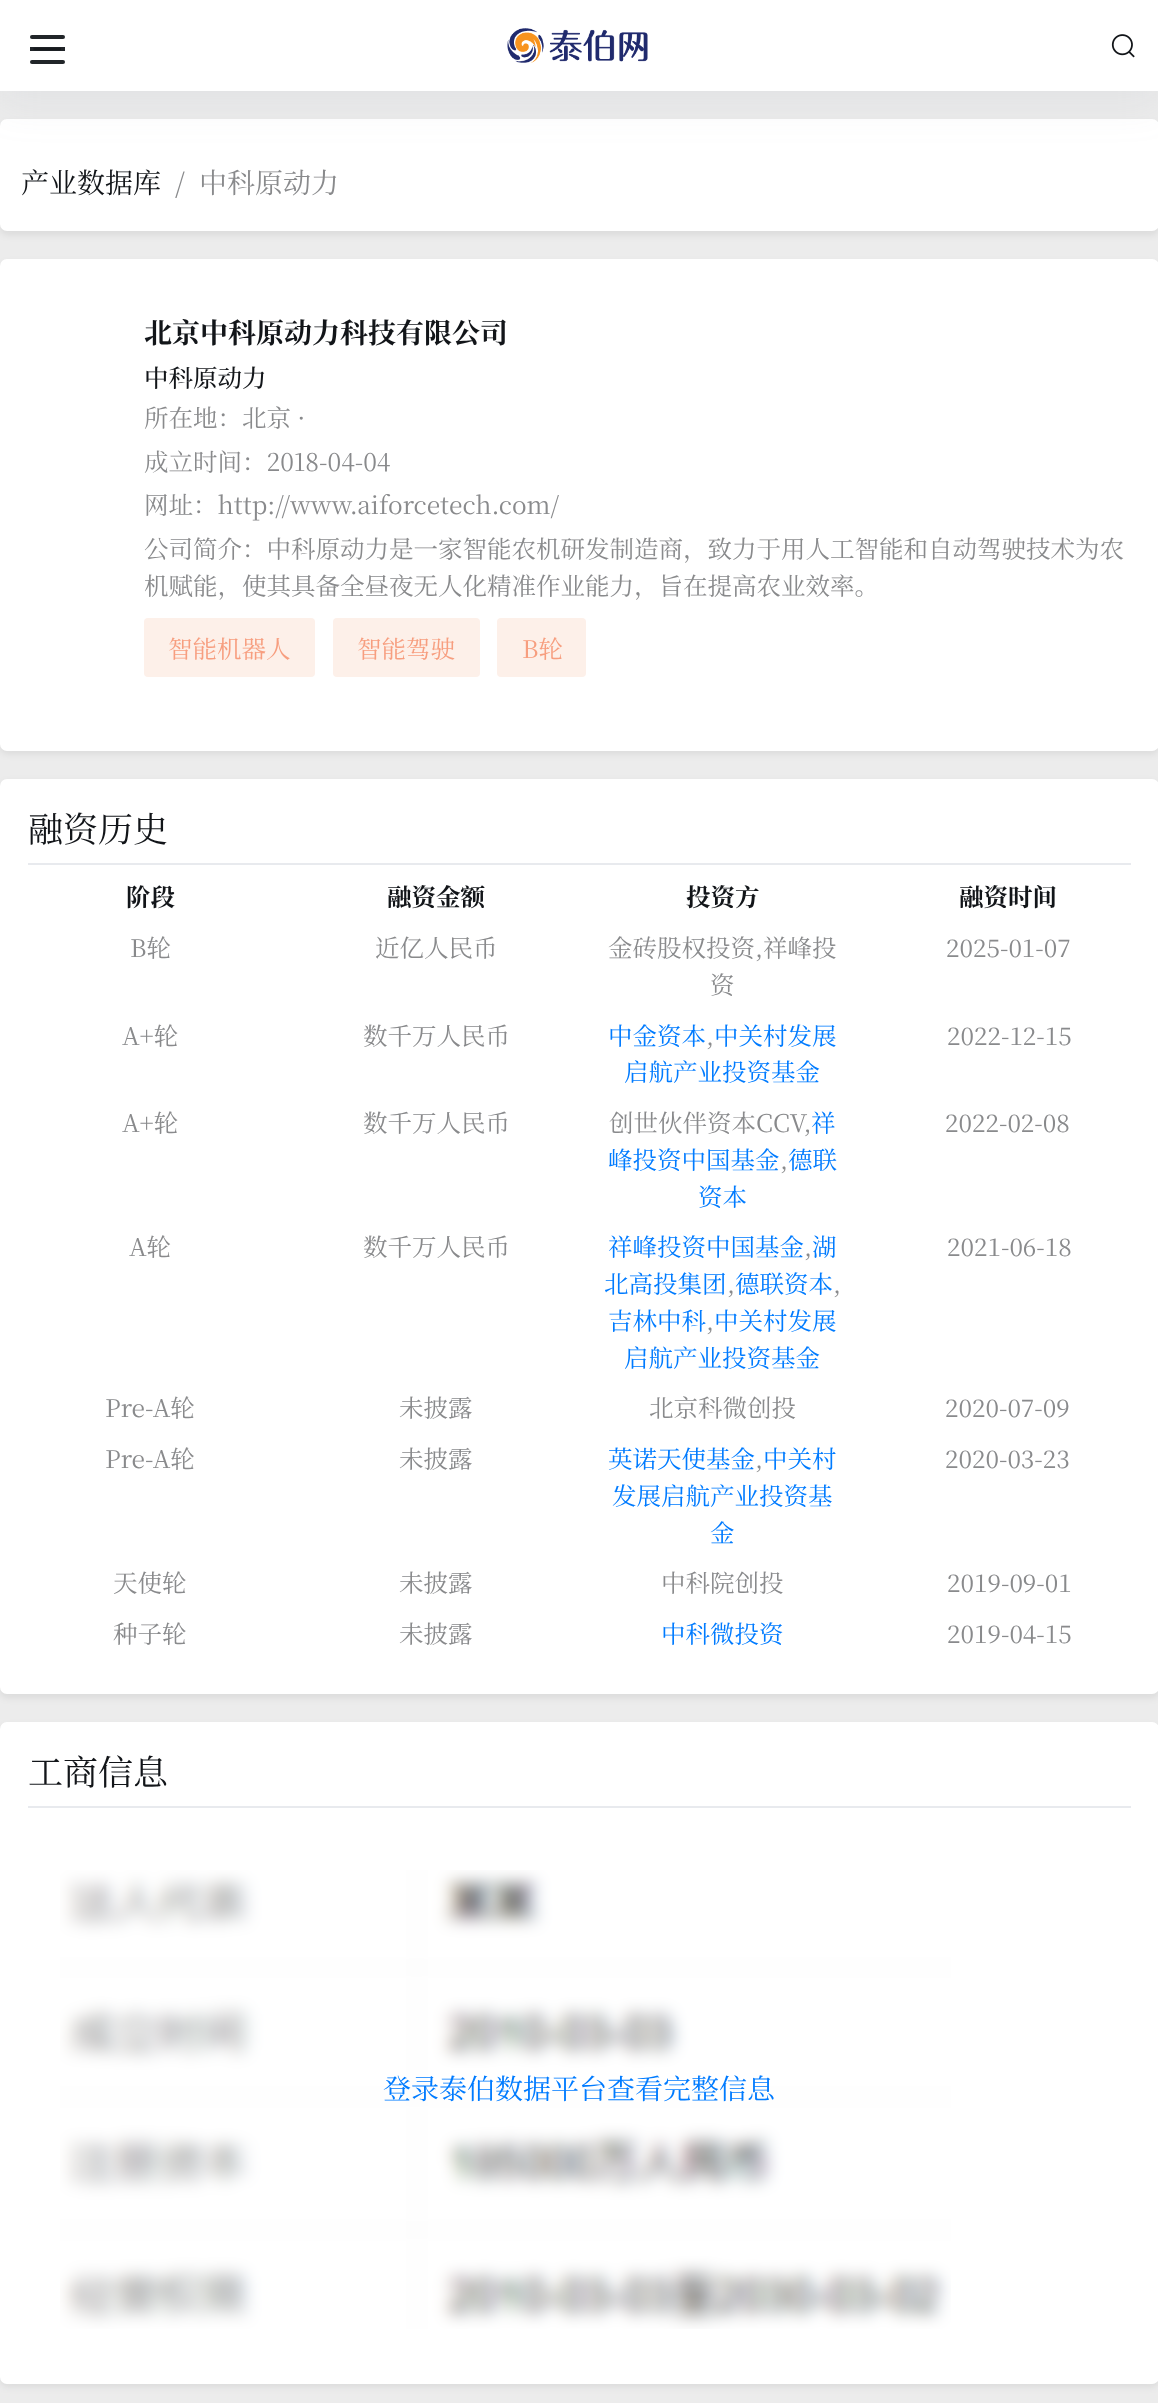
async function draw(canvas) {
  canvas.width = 1158
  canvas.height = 2403
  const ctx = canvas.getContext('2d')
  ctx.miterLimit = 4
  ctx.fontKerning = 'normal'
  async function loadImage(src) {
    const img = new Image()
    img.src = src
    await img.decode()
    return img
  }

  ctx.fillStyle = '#ececec'
  ctx.fillRect(0, 0, 1158, 2403)
  ctx.fillStyle = '#00000012'
  ctx.filter = 'blur(3.5px)'
  ctx.beginPath()
  ctx.roundRect(0, 123, 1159, 112, 7)
  ctx.fill()
  ctx.filter = 'none'
  ctx.fillStyle = '#fff'
  ctx.beginPath()
  ctx.roundRect(0, 119, 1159, 112, 7)
  ctx.fill()
  ctx.fillStyle = '#8c98a41f'
  ctx.filter = 'blur(21px)'
  ctx.beginPath()
  ctx.rect(0, 11, 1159, 91)
  ctx.fill()
  ctx.filter = 'none'
  ctx.fillStyle = '#fff'
  ctx.fillRect(0, 0, 1158, 91)
  ctx.fillStyle = '#212529'
  ctx.fillRect(30, 47, 35, 4)
  ctx.save()
  ctx.beginPath()
  ctx.rect(30, 47, 35, 4)
  ctx.clip()
  ctx.beginPath()
  ctx.moveTo(34.5, 39.5)
  ctx.lineTo(60, 39.5)
  ctx.moveTo(34.5, 49)
  ctx.lineTo(60, 49)
  ctx.moveTo(34.5, 58.5)
  ctx.lineTo(60, 58.5)
  ctx.strokeStyle = '#16191d'
  ctx.lineWidth = 2.3
  ctx.lineCap = 'round'
  ctx.stroke()
  ctx.restore()
  ctx.beginPath()
  ctx.roundRect(30, 35, 35, 4, 2)
  ctx.fill()
  ctx.beginPath()
  ctx.roundRect(30, 60, 35, 4, 2)
  ctx.fill()
  ctx.drawImage(await loadImage('image0.png'), 507, 28, 141, 35)
  ctx.drawImage(await loadImage('image1.png'), 1111, 34, 24, 24)
  ctx.font = '28px Noto Serif SC'
  ctx.fillStyle = '#121519'
  ctx.fillText('产业数据库', 21, 193)
  ctx.fillStyle = '#898a8c'
  ctx.fillText('/', 175, 193)
  ctx.fillText('中科原动力', 199, 193)
  ctx.fillStyle = '#00000012'
  ctx.filter = 'blur(3.5px)'
  ctx.beginPath()
  ctx.roundRect(0, 263, 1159, 491, 7)
  ctx.fill()
  ctx.filter = 'none'
  ctx.fillStyle = '#fff'
  ctx.beginPath()
  ctx.roundRect(0, 259, 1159, 492, 7)
  ctx.fill()
  ctx.font = 'bold 28px Noto Serif SC'
  ctx.fillStyle = '#121519'
  ctx.fillText('北京中科原动力科技有限公司', 144, 343)
  ctx.font = '500 24.5px Noto Serif SC'
  ctx.fillText('中科原动力', 144, 387)
  ctx.font = '24.5px Noto Serif SC'
  ctx.fillStyle = '#898a8c'
  ctx.fillText('所在地：北京 ·', 144, 427)
  ctx.fillText('成立时间：2018-04-04', 144, 471)
  ctx.fillText('网址：http://www.aiforcetech.com/', 144, 514)
  ctx.fillText('公司简介：中科原动力是一家智能农机研发制造商，致力于用人工智能和自动驾驶技术为农', 144, 558)
  ctx.fillText('机赋能，使其具备全昼夜无人化精准作业能力，旨在提高农业效率。', 144, 595)
  ctx.fillStyle = '#fdf0e9'
  ctx.beginPath()
  ctx.roundRect(144, 618, 171, 59, 4)
  ctx.fill()
  ctx.fillStyle = '#f79e7f'
  ctx.fillText('智能机器人', 168, 658)
  ctx.fillStyle = '#fdf0e9'
  ctx.beginPath()
  ctx.roundRect(333, 618, 147, 59, 4)
  ctx.fill()
  ctx.fillStyle = '#f79e7f'
  ctx.fillText('智能驾驶', 357, 658)
  ctx.fillStyle = '#fdf0e9'
  ctx.beginPath()
  ctx.roundRect(497, 618, 89, 59, 4)
  ctx.fill()
  ctx.fillStyle = '#f79e7f'
  ctx.fillText('B轮', 522, 658)
  ctx.fillStyle = '#00000012'
  ctx.filter = 'blur(3.5px)'
  ctx.beginPath()
  ctx.roundRect(0, 782, 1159, 916, 7)
  ctx.fill()
  ctx.filter = 'none'
  ctx.fillStyle = '#fff'
  ctx.beginPath()
  ctx.roundRect(0, 779, 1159, 915, 7)
  ctx.fill()
  ctx.fillStyle = '#e8eaee'
  ctx.fillRect(28, 863, 1103, 2)
  ctx.font = '35px Noto Serif SC'
  ctx.fillStyle = '#121519'
  ctx.fillText('融资历史', 28, 842)
  ctx.font = 'bold 24.5px Noto Serif SC'
  ctx.fillText('阶段', 126, 906)
  ctx.fillText('融资金额', 387, 906)
  ctx.fillText('投资方', 686, 906)
  ctx.fillText('融资时间', 959, 906)
  ctx.font = '24.5px Noto Serif SC'
  ctx.fillStyle = '#898a8c'
  ctx.fillText('B轮', 130, 957)
  ctx.fillText('近亿人民币', 375, 957)
  ctx.fillText('金砖股权投资,祥峰投', 608, 957)
  ctx.fillText('资', 710, 994)
  ctx.fillText('2025-01-07', 946, 957)
  ctx.fillText('A+轮', 122, 1045)
  ctx.fillText('数千万人民币', 363, 1045)
  ctx.fillStyle = '#007bff'
  ctx.fillText('中金资本', 608, 1045)
  ctx.fillStyle = '#898a8c'
  ctx.fillText(',', 706, 1045)
  ctx.fillStyle = '#007bff'
  ctx.fillText('中关村发展', 714, 1045)
  ctx.fillText('启航产业投资基金', 624, 1081)
  ctx.fillStyle = '#898a8c'
  ctx.fillText('2022-12-15', 947, 1045)
  ctx.fillText('A+轮', 122, 1132)
  ctx.fillText('数千万人民币', 363, 1132)
  ctx.fillText('创世伙伴资本CCV,', 609, 1132)
  ctx.fillStyle = '#007bff'
  ctx.fillText('祥', 811, 1132)
  ctx.fillText('峰投资中国基金', 608, 1169)
  ctx.fillStyle = '#898a8c'
  ctx.fillText(',', 780, 1169)
  ctx.fillStyle = '#007bff'
  ctx.fillText('德联', 788, 1169)
  ctx.fillText('资本', 698, 1206)
  ctx.fillStyle = '#898a8c'
  ctx.fillText('2022-02-08', 945, 1132)
  ctx.fillText('A轮', 129, 1256)
  ctx.fillText('数千万人民币', 363, 1256)
  ctx.fillStyle = '#007bff'
  ctx.fillText('祥峰投资中国基金', 608, 1256)
  ctx.fillStyle = '#898a8c'
  ctx.fillText(',', 804, 1256)
  ctx.fillStyle = '#007bff'
  ctx.fillText('湖', 812, 1256)
  ctx.fillText('北高投集团', 604, 1293)
  ctx.fillStyle = '#898a8c'
  ctx.fillText(',', 727, 1293)
  ctx.fillStyle = '#007bff'
  ctx.fillText('德联资本', 735, 1293)
  ctx.fillStyle = '#898a8c'
  ctx.fillText(',', 833, 1293)
  ctx.fillStyle = '#007bff'
  ctx.fillText('吉林中科', 608, 1330)
  ctx.fillStyle = '#898a8c'
  ctx.fillText(',', 706, 1330)
  ctx.fillStyle = '#007bff'
  ctx.fillText('中关村发展', 714, 1330)
  ctx.fillText('启航产业投资基金', 624, 1367)
  ctx.fillStyle = '#898a8c'
  ctx.fillText('2021-06-18', 947, 1256)
  ctx.fillText('Pre-A轮', 105, 1417)
  ctx.fillText('未披露', 399, 1417)
  ctx.fillText('北京科微创投', 649, 1417)
  ctx.fillText('2020-07-09', 945, 1417)
  ctx.fillText('Pre-A轮', 105, 1468)
  ctx.fillText('未披露', 399, 1468)
  ctx.fillStyle = '#007bff'
  ctx.fillText('英诺天使基金', 608, 1468)
  ctx.fillStyle = '#898a8c'
  ctx.fillText(',', 755, 1468)
  ctx.fillStyle = '#007bff'
  ctx.fillText('中关村', 763, 1468)
  ctx.fillText('发展启航产业投资基', 612, 1505)
  ctx.fillText('金', 710, 1542)
  ctx.fillStyle = '#898a8c'
  ctx.fillText('2020-03-23', 945, 1468)
  ctx.fillText('天使轮', 113, 1592)
  ctx.fillText('未披露', 399, 1592)
  ctx.fillText('中科院创投', 661, 1592)
  ctx.fillText('2019-09-01', 947, 1592)
  ctx.fillText('种子轮', 113, 1643)
  ctx.fillText('未披露', 399, 1643)
  ctx.fillStyle = '#007bff'
  ctx.fillText('中科微投资', 661, 1643)
  ctx.fillStyle = '#898a8c'
  ctx.fillText('2019-04-15', 947, 1643)
  ctx.fillStyle = '#00000012'
  ctx.filter = 'blur(3.5px)'
  ctx.beginPath()
  ctx.roundRect(0, 1726, 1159, 661, 7)
  ctx.fill()
  ctx.filter = 'none'
  ctx.fillStyle = '#fff'
  ctx.beginPath()
  ctx.roundRect(0, 1722, 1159, 662, 7)
  ctx.fill()
  ctx.fillStyle = '#e8eaee'
  ctx.fillRect(28, 1806, 1103, 2)
  ctx.font = '35px Noto Serif SC'
  ctx.fillStyle = '#121519'
  ctx.fillText('工商信息', 28, 1785)
  ctx.drawImage(await loadImage('image2.png'), 60, 1870, 891, 459)
  ctx.font = '28px Noto Serif SC'
  ctx.fillStyle = '#007bff'
  ctx.fillText('登录泰伯数据平台查看完整信息', 383, 2099)
}

draw(document.querySelector('canvas'))
